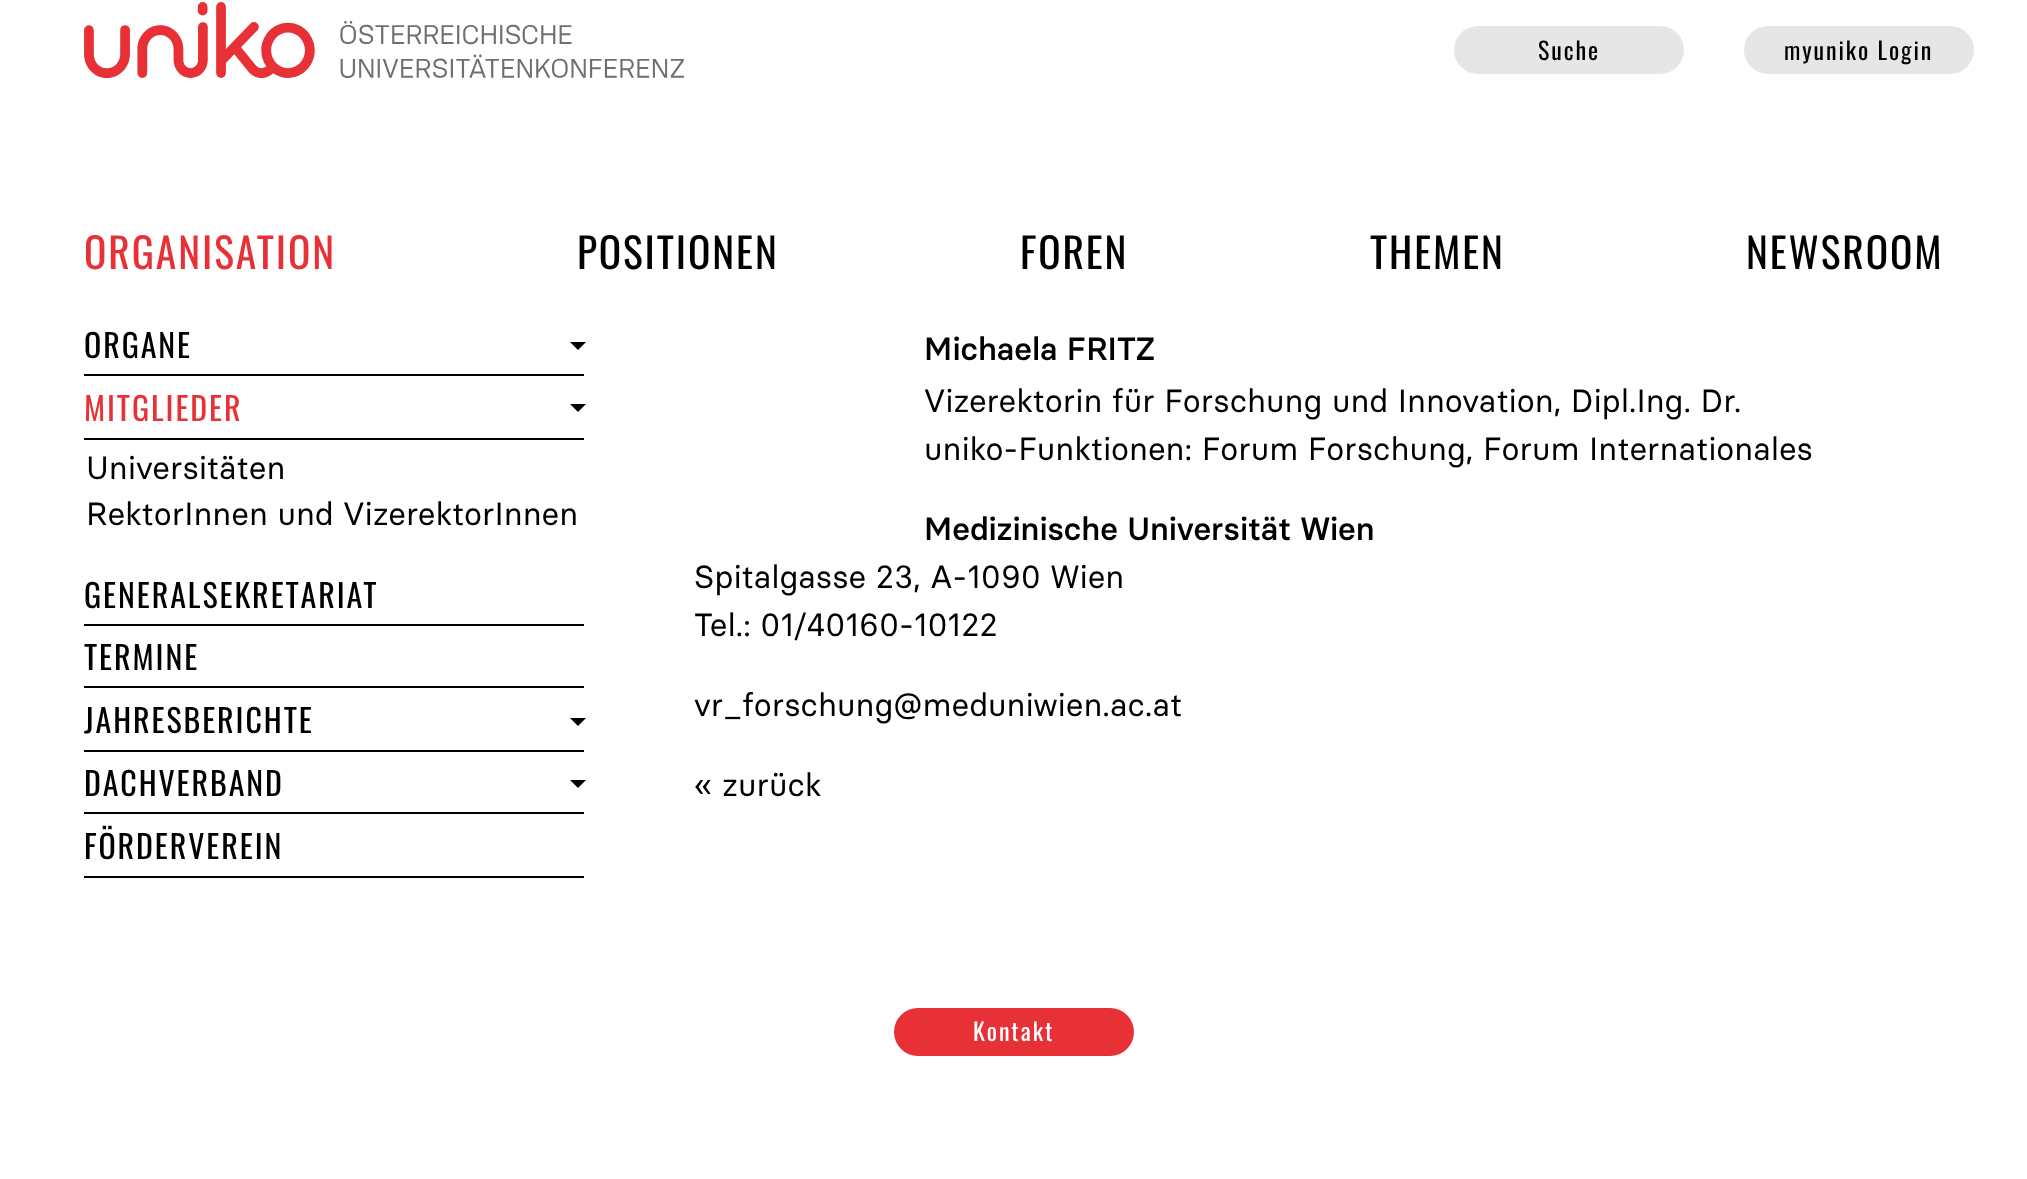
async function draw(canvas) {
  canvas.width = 2027
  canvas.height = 1179
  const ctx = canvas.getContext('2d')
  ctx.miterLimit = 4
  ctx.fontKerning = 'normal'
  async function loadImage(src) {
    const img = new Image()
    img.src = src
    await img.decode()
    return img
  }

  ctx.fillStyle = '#fff'
  ctx.fillRect(0, 0, 2027, 1179)
  ctx.drawImage(await loadImage('image0.png'), 84, 2, 600, 76)
  ctx.fillStyle = '#e6e6e6'
  ctx.beginPath()
  ctx.roundRect(1454, 26, 230, 48, 24)
  ctx.fill()
  ctx.letterSpacing = '1.9px'
  ctx.font = '24px Oswald'
  ctx.fillStyle = '#000'
  ctx.fillText('Suche', 1538, 60)
  ctx.fillStyle = '#e6e6e6'
  ctx.beginPath()
  ctx.roundRect(1744, 26, 230, 48, 24)
  ctx.fill()
  ctx.fillStyle = '#000'
  ctx.fillText('myuniko Login', 1784, 60)
  ctx.font = '41.5px Oswald'
  ctx.fillStyle = '#e73137'
  ctx.fillText('ORGANISATION', 84, 269)
  ctx.fillStyle = '#000'
  ctx.fillText('POSITIONEN', 577, 269)
  ctx.fillText('FOREN', 1020, 269)
  ctx.fillText('THEMEN', 1370, 269)
  ctx.fillText('NEWSROOM', 1746, 269)
  ctx.fillRect(84, 374, 500, 2)
  ctx.font = '32px Oswald'
  ctx.fillText('ORGANE', 84, 358)
  ctx.beginPath()
  ctx.moveTo(570, 342)
  ctx.lineTo(586, 342)
  ctx.lineTo(578, 350)
  ctx.closePath()
  ctx.fill()
  ctx.fillRect(84, 438, 500, 2)
  ctx.fillStyle = '#e73137'
  ctx.fillText('MITGLIEDER', 84, 421)
  ctx.fillStyle = '#000'
  ctx.beginPath()
  ctx.moveTo(570, 404)
  ctx.lineTo(586, 404)
  ctx.lineTo(578, 412)
  ctx.closePath()
  ctx.fill()
  ctx.letterSpacing = '0px'
  ctx.font = '32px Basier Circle'
  ctx.fillText('Universitäten', 86, 479)
  ctx.fillText('RektorInnen und VizerektorInnen', 86, 525)
  ctx.fillRect(84, 624, 500, 2)
  ctx.letterSpacing = '1.9px'
  ctx.font = '32px Oswald'
  ctx.fillText('GENERALSEKRETARIAT', 84, 608)
  ctx.fillRect(84, 686, 500, 2)
  ctx.fillText('TERMINE', 84, 670)
  ctx.fillRect(84, 750, 500, 2)
  ctx.fillText('JAHRESBERICHTE', 84, 733)
  ctx.beginPath()
  ctx.moveTo(570, 718)
  ctx.lineTo(586, 718)
  ctx.lineTo(578, 726)
  ctx.closePath()
  ctx.fill()
  ctx.fillRect(84, 812, 500, 2)
  ctx.fillText('DACHVERBAND', 84, 796)
  ctx.beginPath()
  ctx.moveTo(570, 780)
  ctx.lineTo(586, 780)
  ctx.lineTo(578, 788)
  ctx.closePath()
  ctx.fill()
  ctx.fillRect(84, 876, 500, 2)
  ctx.fillText('FÖRDERVEREIN', 84, 859)
  ctx.letterSpacing = '0px'
  ctx.font = '500 32px Basier Circle'
  ctx.fillText('Michaela FRITZ', 924, 360)
  ctx.font = '32px Basier Circle'
  ctx.fillText('Vizerektorin für Forschung und Innovation, Dipl.Ing. Dr.', 924, 412)
  ctx.fillText('uniko-Funktionen: Forum Forschung, Forum Internationales', 924, 460)
  ctx.font = '500 32px Basier Circle'
  ctx.fillText('Medizinische Universität Wien', 924, 540)
  ctx.font = '32px Basier Circle'
  ctx.fillText('Spitalgasse 23, A-1090 Wien', 694, 588)
  ctx.fillText('Tel.: 01/40160-10122', 694, 636)
  ctx.fillText('vr_forschung@meduniwien.ac.at', 694, 716)
  ctx.fillText('« zurück', 694, 796)
  ctx.fillStyle = '#e73137'
  ctx.beginPath()
  ctx.roundRect(894, 1008, 240, 48, 24)
  ctx.fill()
  ctx.letterSpacing = '1.9px'
  ctx.font = '24px Oswald'
  ctx.fillStyle = '#fff'
  ctx.fillText('Kontakt', 973, 1041)
}

draw(document.querySelector('canvas'))
